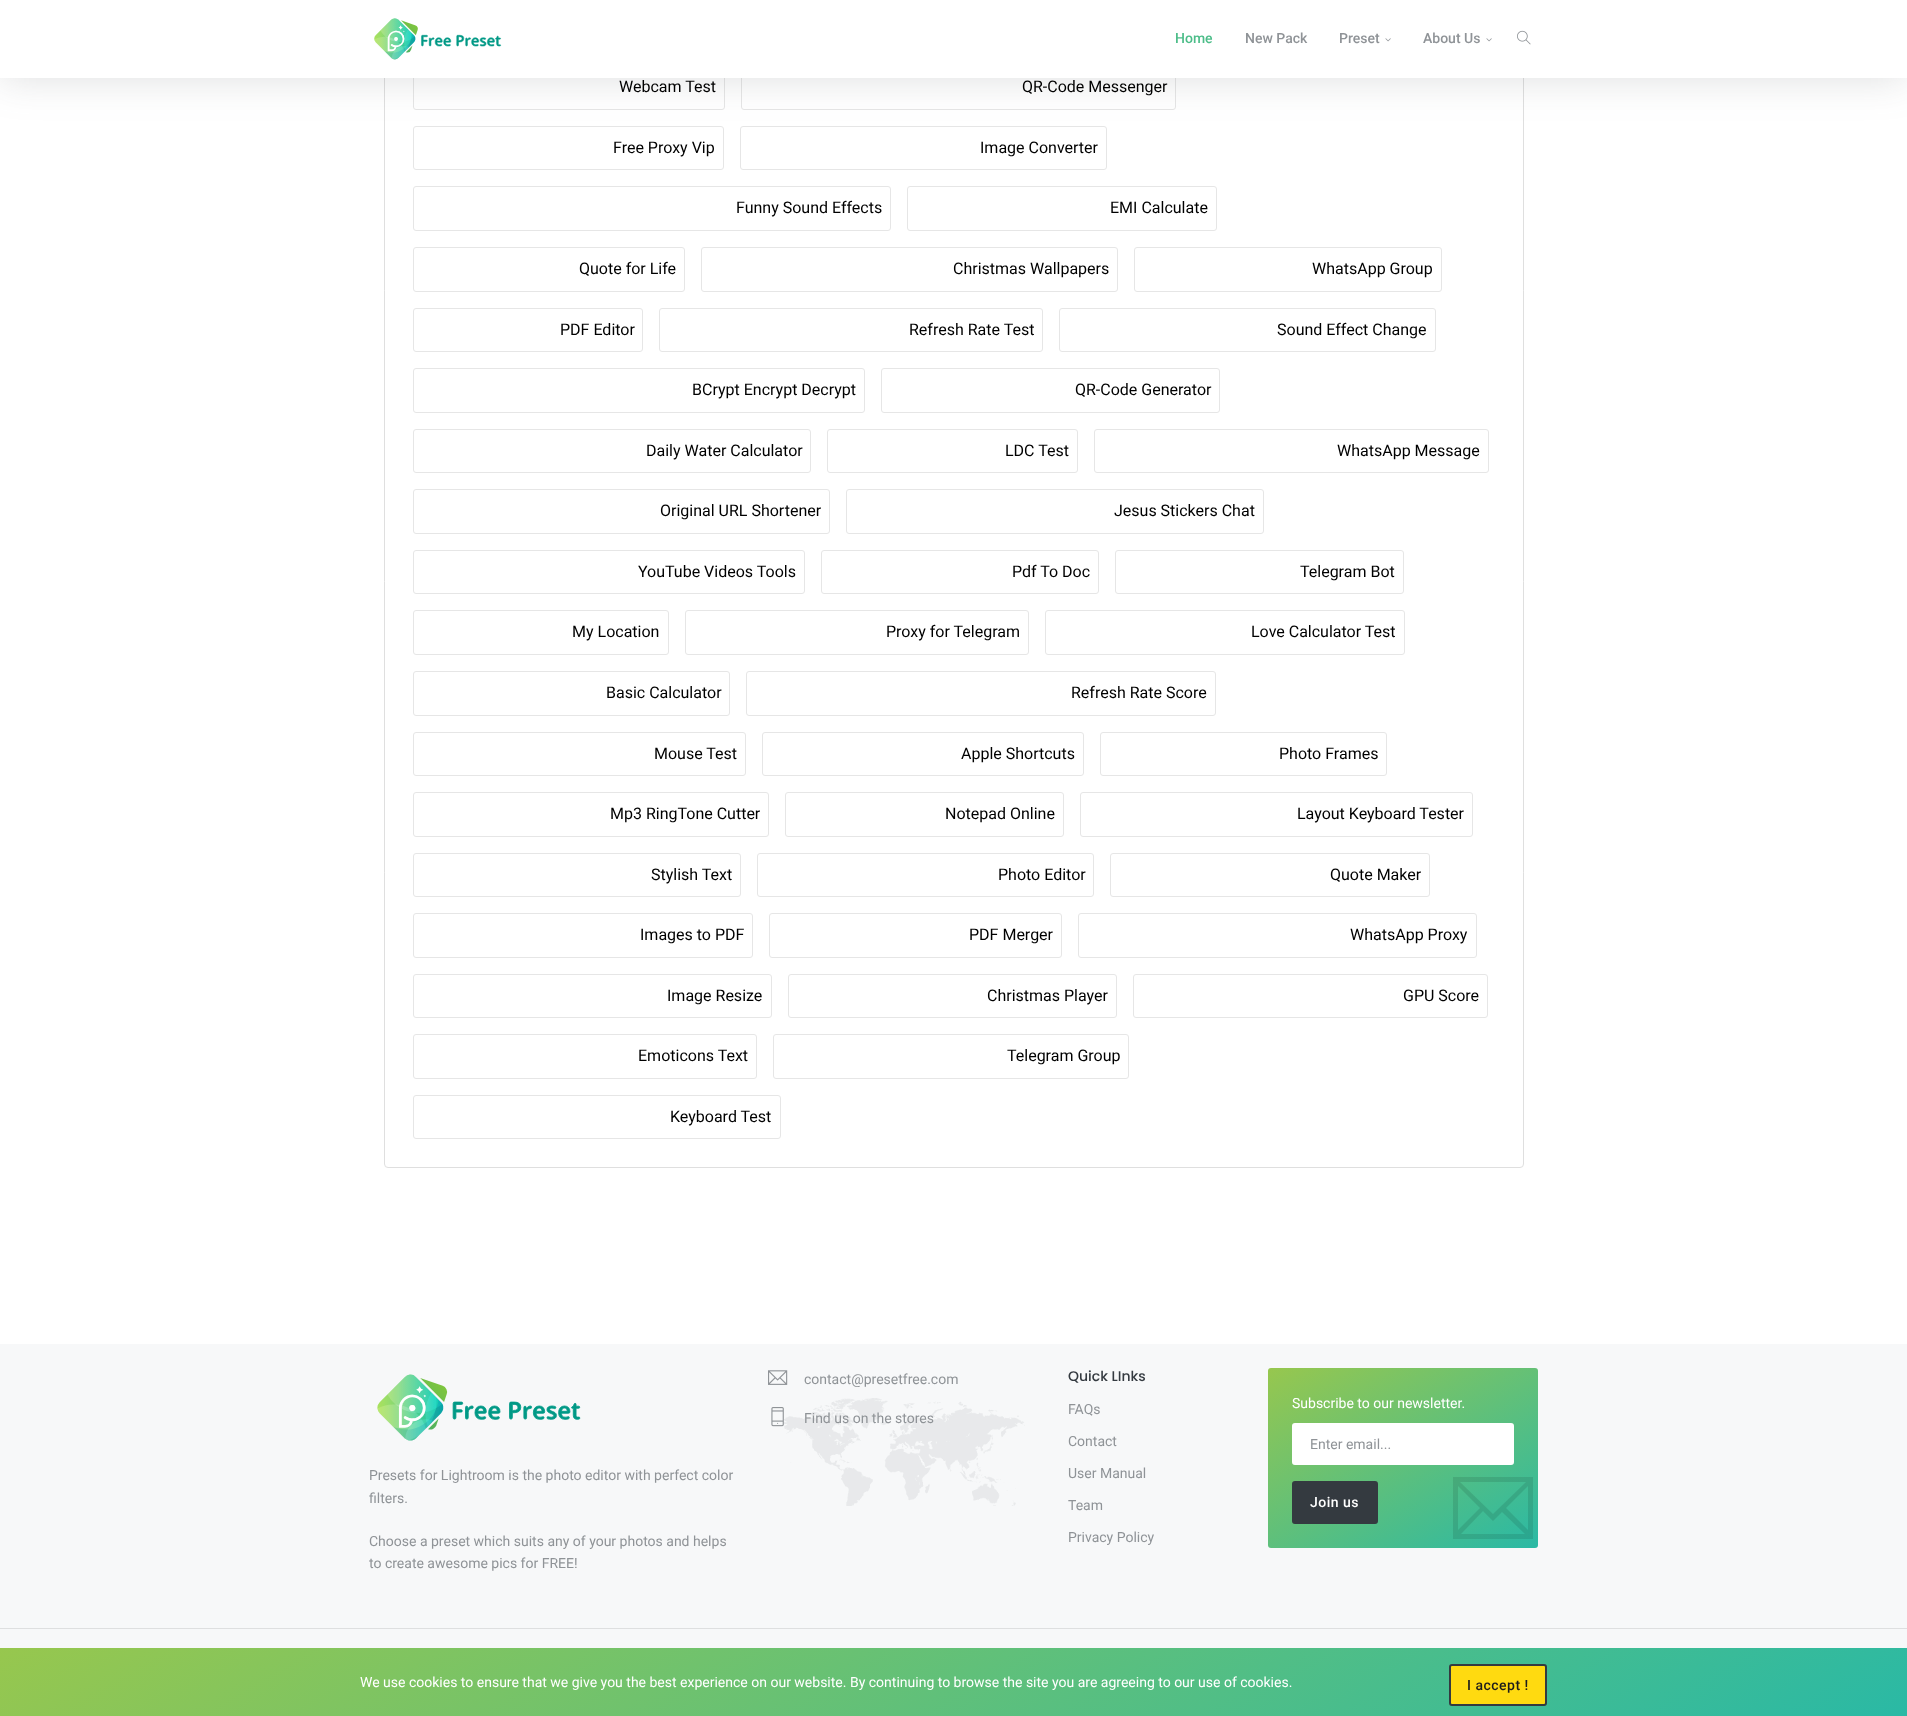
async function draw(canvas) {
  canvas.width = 1907
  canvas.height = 1716
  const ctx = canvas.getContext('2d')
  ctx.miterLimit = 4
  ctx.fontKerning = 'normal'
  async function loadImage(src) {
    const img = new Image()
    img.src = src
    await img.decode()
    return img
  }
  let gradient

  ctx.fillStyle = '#fff'
  ctx.fillRect(0, 0, 1907, 1716)
  ctx.beginPath()
  ctx.roundRect(384.5, -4.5, 1139, 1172, 3.5)
  ctx.strokeStyle = '#dfdfdf'
  ctx.stroke()
  ctx.beginPath()
  ctx.roundRect(413.5, 65.5, 311, 44, 2.5)
  ctx.strokeStyle = '#e6e6e6'
  ctx.stroke()
  ctx.beginPath()
  ctx.roundRect(741.5, 65.5, 434, 44, 2.5)
  ctx.stroke()
  ctx.beginPath()
  ctx.roundRect(413.5, 126.5, 310, 43, 2.5)
  ctx.stroke()
  ctx.beginPath()
  ctx.roundRect(740.5, 126.5, 366, 43, 2.5)
  ctx.stroke()
  ctx.fillStyle = '#53585d33'
  ctx.filter = 'blur(20px)'
  ctx.beginPath()
  ctx.rect(0, 0, 1907, 78)
  ctx.fill()
  ctx.filter = 'none'
  ctx.fillStyle = '#fff'
  ctx.fillRect(0, 0, 1907, 78)
  ctx.drawImage(await loadImage('image0.png'), 374, 18, 128, 42)
  ctx.font = '500 14px Roboto'
  ctx.fillStyle = '#4cbd89'
  ctx.fillText('Home', 1175, 43)
  ctx.fillStyle = '#8f9397'
  ctx.fillText('New Pack', 1245, 43)
  ctx.fillText('Preset', 1339, 43)
  ctx.drawImage(await loadImage('image1.png'), 1385, 38, 6, 4)
  ctx.fillText('About Us', 1423, 43)
  ctx.drawImage(await loadImage('image1.png'), 1486, 38, 6, 4)
  ctx.drawImage(await loadImage('image2.png'), 1517, 30, 14, 15)
  ctx.font = '16px Roboto'
  ctx.fillStyle = '#000'
  ctx.fillText('Webcam Test', 619, 92)
  ctx.fillText('QR-Code Messenger', 1022, 92)
  ctx.fillText('Free Proxy Vip', 613, 153)
  ctx.fillText('Image Converter', 980, 153)
  ctx.beginPath()
  ctx.roundRect(413.5, 186.5, 477, 44, 2.5)
  ctx.stroke()
  ctx.fillText('Funny Sound Effects', 736, 213)
  ctx.beginPath()
  ctx.roundRect(907.5, 186.5, 309, 44, 2.5)
  ctx.stroke()
  ctx.fillText('EMI Calculate', 1110, 213)
  ctx.beginPath()
  ctx.roundRect(413.5, 247.5, 271, 44, 2.5)
  ctx.stroke()
  ctx.fillText('Quote for Life', 579, 274)
  ctx.beginPath()
  ctx.roundRect(701.5, 247.5, 416, 44, 2.5)
  ctx.stroke()
  ctx.fillText('Christmas Wallpapers', 953, 274)
  ctx.beginPath()
  ctx.roundRect(1134.5, 247.5, 307, 44, 2.5)
  ctx.stroke()
  ctx.fillText('WhatsApp Group', 1312, 274)
  ctx.beginPath()
  ctx.roundRect(413.5, 308.5, 229, 43, 2.5)
  ctx.stroke()
  ctx.fillText('PDF Editor', 560, 335)
  ctx.beginPath()
  ctx.roundRect(659.5, 308.5, 383, 43, 2.5)
  ctx.stroke()
  ctx.fillText('Refresh Rate Test', 909, 335)
  ctx.beginPath()
  ctx.roundRect(1059.5, 308.5, 376, 43, 2.5)
  ctx.stroke()
  ctx.fillText('Sound Effect Change', 1277, 335)
  ctx.beginPath()
  ctx.roundRect(413.5, 368.5, 451, 44, 2.5)
  ctx.stroke()
  ctx.fillText('BCrypt Encrypt Decrypt', 692, 395)
  ctx.beginPath()
  ctx.roundRect(881.5, 368.5, 338, 44, 2.5)
  ctx.stroke()
  ctx.fillText('QR-Code Generator', 1075, 395)
  ctx.beginPath()
  ctx.roundRect(413.5, 429.5, 397, 43, 2.5)
  ctx.stroke()
  ctx.fillText('Daily Water Calculator', 646, 456)
  ctx.beginPath()
  ctx.roundRect(827.5, 429.5, 250, 43, 2.5)
  ctx.stroke()
  ctx.fillText('LDC Test', 1005, 456)
  ctx.beginPath()
  ctx.roundRect(1094.5, 429.5, 394, 43, 2.5)
  ctx.stroke()
  ctx.fillText('WhatsApp Message', 1337, 456)
  ctx.beginPath()
  ctx.roundRect(413.5, 489.5, 416, 44, 2.5)
  ctx.stroke()
  ctx.fillText('Original URL Shortener', 660, 516)
  ctx.beginPath()
  ctx.roundRect(846.5, 489.5, 417, 44, 2.5)
  ctx.stroke()
  ctx.fillText('Jesus Stickers Chat', 1114, 516)
  ctx.beginPath()
  ctx.roundRect(413.5, 550.5, 391, 43, 2.5)
  ctx.stroke()
  ctx.fillText('YouTube Videos Tools', 638, 577)
  ctx.beginPath()
  ctx.roundRect(821.5, 550.5, 277, 43, 2.5)
  ctx.stroke()
  ctx.fillText('Pdf To Doc', 1012, 577)
  ctx.beginPath()
  ctx.roundRect(1115.5, 550.5, 288, 43, 2.5)
  ctx.stroke()
  ctx.fillText('Telegram Bot', 1300, 577)
  ctx.beginPath()
  ctx.roundRect(413.5, 610.5, 255, 44, 2.5)
  ctx.stroke()
  ctx.fillText('My Location', 572, 637)
  ctx.beginPath()
  ctx.roundRect(685.5, 610.5, 343, 44, 2.5)
  ctx.stroke()
  ctx.fillText('Proxy for Telegram', 886, 637)
  ctx.beginPath()
  ctx.roundRect(1045.5, 610.5, 359, 44, 2.5)
  ctx.stroke()
  ctx.fillText('Love Calculator Test', 1251, 637)
  ctx.beginPath()
  ctx.roundRect(413.5, 671.5, 316, 44, 2.5)
  ctx.stroke()
  ctx.fillText('Basic Calculator', 606, 698)
  ctx.beginPath()
  ctx.roundRect(746.5, 671.5, 469, 44, 2.5)
  ctx.stroke()
  ctx.fillText('Refresh Rate Score', 1071, 698)
  ctx.beginPath()
  ctx.roundRect(413.5, 732.5, 332, 43, 2.5)
  ctx.stroke()
  ctx.fillText('Mouse Test', 654, 759)
  ctx.beginPath()
  ctx.roundRect(762.5, 732.5, 321, 43, 2.5)
  ctx.stroke()
  ctx.fillText('Apple Shortcuts', 961, 759)
  ctx.beginPath()
  ctx.roundRect(1100.5, 732.5, 286, 43, 2.5)
  ctx.stroke()
  ctx.fillText('Photo Frames', 1279, 759)
  ctx.beginPath()
  ctx.roundRect(413.5, 792.5, 355, 44, 2.5)
  ctx.stroke()
  ctx.fillText('Mp3 RingTone Cutter', 610, 819)
  ctx.beginPath()
  ctx.roundRect(785.5, 792.5, 278, 44, 2.5)
  ctx.stroke()
  ctx.fillText('Notepad Online', 945, 819)
  ctx.beginPath()
  ctx.roundRect(1080.5, 792.5, 392, 44, 2.5)
  ctx.stroke()
  ctx.fillText('Layout Keyboard Tester', 1297, 819)
  ctx.beginPath()
  ctx.roundRect(413.5, 853.5, 327, 43, 2.5)
  ctx.stroke()
  ctx.fillText('Stylish Text', 651, 880)
  ctx.beginPath()
  ctx.roundRect(757.5, 853.5, 336, 43, 2.5)
  ctx.stroke()
  ctx.fillText('Photo Editor', 998, 880)
  ctx.beginPath()
  ctx.roundRect(1110.5, 853.5, 319, 43, 2.5)
  ctx.stroke()
  ctx.fillText('Quote Maker', 1330, 880)
  ctx.beginPath()
  ctx.roundRect(413.5, 913.5, 339, 44, 2.5)
  ctx.stroke()
  ctx.fillText('Images to PDF', 640, 940)
  ctx.beginPath()
  ctx.roundRect(769.5, 913.5, 292, 44, 2.5)
  ctx.stroke()
  ctx.fillText('PDF Merger', 969, 940)
  ctx.beginPath()
  ctx.roundRect(1078.5, 913.5, 398, 44, 2.5)
  ctx.stroke()
  ctx.fillText('WhatsApp Proxy', 1350, 940)
  ctx.beginPath()
  ctx.roundRect(413.5, 974.5, 358, 43, 2.5)
  ctx.stroke()
  ctx.fillText('Image Resize', 667, 1001)
  ctx.beginPath()
  ctx.roundRect(788.5, 974.5, 328, 43, 2.5)
  ctx.stroke()
  ctx.fillText('Christmas Player', 987, 1001)
  ctx.beginPath()
  ctx.roundRect(1133.5, 974.5, 354, 43, 2.5)
  ctx.stroke()
  ctx.fillText('GPU Score', 1403, 1001)
  ctx.beginPath()
  ctx.roundRect(413.5, 1034.5, 343, 44, 2.5)
  ctx.stroke()
  ctx.fillText('Emoticons Text', 638, 1061)
  ctx.beginPath()
  ctx.roundRect(773.5, 1034.5, 355, 44, 2.5)
  ctx.stroke()
  ctx.fillText('Telegram Group', 1007, 1061)
  ctx.beginPath()
  ctx.roundRect(413.5, 1095.5, 367, 43, 2.5)
  ctx.stroke()
  ctx.fillText('Keyboard Test', 670, 1122)
  ctx.fillStyle = '#f7f8f9'
  ctx.fillRect(0, 1344, 1907, 304)
  ctx.drawImage(await loadImage('image3.png'), 784, 1398, 241, 108)
  ctx.drawImage(await loadImage('image4.png'), 768, 1370, 20, 15)
  ctx.font = '14px Roboto'
  ctx.fillStyle = '#8f9397'
  ctx.fillText('contact@presetfree.com', 804, 1384)
  ctx.drawImage(await loadImage('image5.png'), 771, 1407, 13, 20)
  ctx.fillText('Find us on the stores', 804, 1423)
  ctx.font = '500 14px Poppins'
  ctx.fillStyle = '#343a40'
  ctx.fillText('Quick LInks', 1068, 1381)
  ctx.font = '14px Roboto'
  ctx.fillStyle = '#8f9397'
  ctx.fillText('FAQs', 1068, 1414)
  ctx.fillText('Contact', 1068, 1446)
  ctx.fillText('User Manual', 1068, 1478)
  ctx.fillText('Team', 1068, 1510)
  ctx.fillText('Privacy Policy', 1068, 1542)
  gradient = ctx.createLinearGradient(1330, 1332, 1476, 1584)
  gradient.addColorStop(0, '#97c74e')
  gradient.addColorStop(1, '#2ab9a5')
  ctx.fillStyle = gradient
  ctx.beginPath()
  ctx.roundRect(1268, 1368, 270, 180, 3)
  ctx.fill()
  ctx.fillStyle = '#fff'
  ctx.fillText('Subscribe to our newsletter.', 1292, 1408)
  ctx.beginPath()
  ctx.roundRect(1293, 1424, 220, 40, 2)
  ctx.fill()
  ctx.strokeStyle = '#fff'
  ctx.lineWidth = 2
  ctx.stroke()
  ctx.fillStyle = '#8f9397'
  ctx.fillText('Enter email...', 1310, 1449)
  ctx.fillStyle = '#343a40'
  ctx.beginPath()
  ctx.roundRect(1293, 1482, 84, 41, 2)
  ctx.fill()
  ctx.strokeStyle = '#343a40'
  ctx.stroke()
  ctx.letterSpacing = '0.5px'
  ctx.font = '500 14px Roboto'
  ctx.fillStyle = '#fff'
  ctx.fillText('Join us', 1310, 1507)
  ctx.fillStyle = '#0000001a'
  ctx.beginPath()
  ctx.moveTo(1453, 1477)
  ctx.lineTo(1453, 1539)
  ctx.lineTo(1533, 1539)
  ctx.lineTo(1533, 1477)
  ctx.closePath()
  ctx.moveTo(1493, 1514)
  ctx.lineTo(1460, 1482)
  ctx.lineTo(1526, 1482)
  ctx.closePath()
  ctx.moveTo(1480, 1508)
  ctx.lineTo(1458, 1530)
  ctx.lineTo(1458, 1486)
  ctx.closePath()
  ctx.moveTo(1483, 1511)
  ctx.lineTo(1493, 1521)
  ctx.lineTo(1502, 1512)
  ctx.lineTo(1525, 1534)
  ctx.lineTo(1461, 1534)
  ctx.closePath()
  ctx.moveTo(1506, 1508)
  ctx.lineTo(1528, 1486)
  ctx.lineTo(1528, 1530)
  ctx.closePath()
  ctx.fill()
  ctx.drawImage(await loadImage('image6.png'), 377, 1374, 204, 67)
  ctx.letterSpacing = '0px'
  ctx.font = '14px Roboto'
  ctx.fillStyle = '#8f9397'
  ctx.fillText('Presets for Lightroom is the photo editor with perfect color', 369, 1480)
  ctx.fillText('filters.', 369, 1503)
  ctx.fillText('Choose a preset which suits any of your photos and helps', 369, 1546)
  ctx.fillText('to create awesome pics for FREE!', 369, 1568)
  ctx.fillStyle = '#dedfe0'
  ctx.fillRect(0, 1628, 1907, 1)
  gradient = ctx.createLinearGradient(700, 1244, 1207, 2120)
  gradient.addColorStop(0, '#97c74e')
  gradient.addColorStop(1, '#2ab9a5')
  ctx.fillStyle = gradient
  ctx.fillRect(0, 1648, 1907, 68)
  ctx.fillStyle = '#fff'
  ctx.fillText('We use cookies to ensure that we give you the best experience on our website. By continuing to browse the site you are agreeing to our use of cookies.', 360, 1687)
  ctx.fillStyle = '#ffda10'
  ctx.beginPath()
  ctx.roundRect(1450, 1665, 96, 40, 2)
  ctx.fill()
  ctx.stroke()
  ctx.letterSpacing = '0.5px'
  ctx.font = '500 14px Roboto'
  ctx.fillStyle = '#1c1c1c'
  ctx.fillText('I accept !', 1467, 1690)
}

draw(document.querySelector('canvas'))
